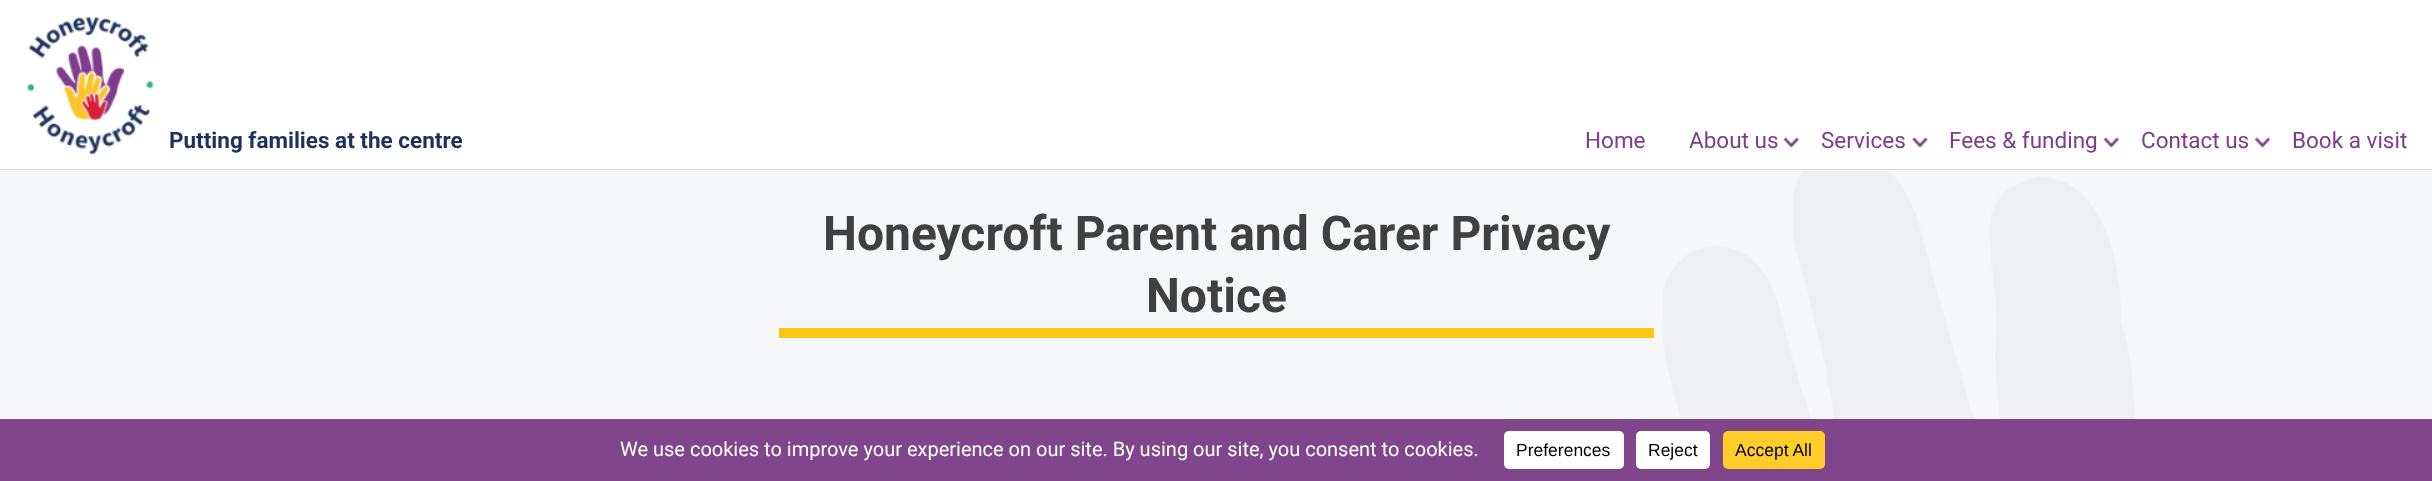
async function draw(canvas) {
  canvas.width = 2432
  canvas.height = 481
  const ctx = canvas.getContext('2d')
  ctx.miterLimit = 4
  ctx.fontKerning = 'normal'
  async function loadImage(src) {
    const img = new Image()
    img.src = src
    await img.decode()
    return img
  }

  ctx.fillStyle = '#f5f7f8'
  ctx.fillRect(0, 0, 2432, 481)
  ctx.drawImage(await loadImage('image0.png'), 1662, 170, 473, 249)
  ctx.fillStyle = '#fff'
  ctx.fillRect(0, 0, 2432, 169)
  ctx.fillStyle = '#dedede'
  ctx.fillRect(0, 169, 2432, 1)
  ctx.drawImage(await loadImage('image1.png'), 27, 17, 127, 138)
  ctx.font = 'bold 22.5px Roboto'
  ctx.fillStyle = '#1b325c'
  ctx.fillText('Putting families at the centre', 169, 148)
  ctx.font = '22.5px Roboto'
  ctx.fillStyle = '#7f3b8c'
  ctx.fillText('Home', 1585, 148)
  ctx.fillText('About us', 1689, 148)
  ctx.drawImage(await loadImage('image2.png'), 1783, 137, 16, 11)
  ctx.fillText('Services', 1821, 148)
  ctx.drawImage(await loadImage('image3.png'), 1912, 137, 16, 11)
  ctx.fillText('Fees & funding', 1949, 148)
  ctx.drawImage(await loadImage('image4.png'), 2103, 137, 16, 11)
  ctx.fillText('Contact us', 2141, 148)
  ctx.drawImage(await loadImage('image5.png'), 2255, 137, 15, 11)
  ctx.fillText('Book a visit', 2292, 148)
  ctx.fillStyle = '#fcc712'
  ctx.fillRect(779, 328, 875, 10)
  ctx.font = 'bold 48px Roboto'
  ctx.fillStyle = '#404040'
  ctx.fillText('Honeycroft Parent and Carer Privacy', 823, 250)
  ctx.fillText('Notice', 1146, 312)
  ctx.fillStyle = '#7f468b'
  ctx.fillRect(0, 419, 2432, 62)
  ctx.font = '20px Roboto'
  ctx.fillStyle = '#fff'
  ctx.fillText('We use cookies to improve your experience on our site. By using our site, you consent to cookies.', 620, 456)
  ctx.beginPath()
  ctx.roundRect(1504, 431, 120, 38, 5)
  ctx.fill()
  ctx.font = '17.5px Liberation Sans'
  ctx.fillStyle = '#000'
  ctx.fillText('Preferences', 1516, 456)
  ctx.fillStyle = '#fff'
  ctx.beginPath()
  ctx.roundRect(1636, 431, 74, 38, 5)
  ctx.fill()
  ctx.fillStyle = '#000'
  ctx.fillText('Reject', 1648, 456)
  ctx.fillStyle = '#ffcd2a'
  ctx.beginPath()
  ctx.roundRect(1723, 431, 102, 38, 5)
  ctx.fill()
  ctx.fillStyle = '#000'
  ctx.fillText('Accept All', 1735, 456)
}

draw(document.querySelector('canvas'))
